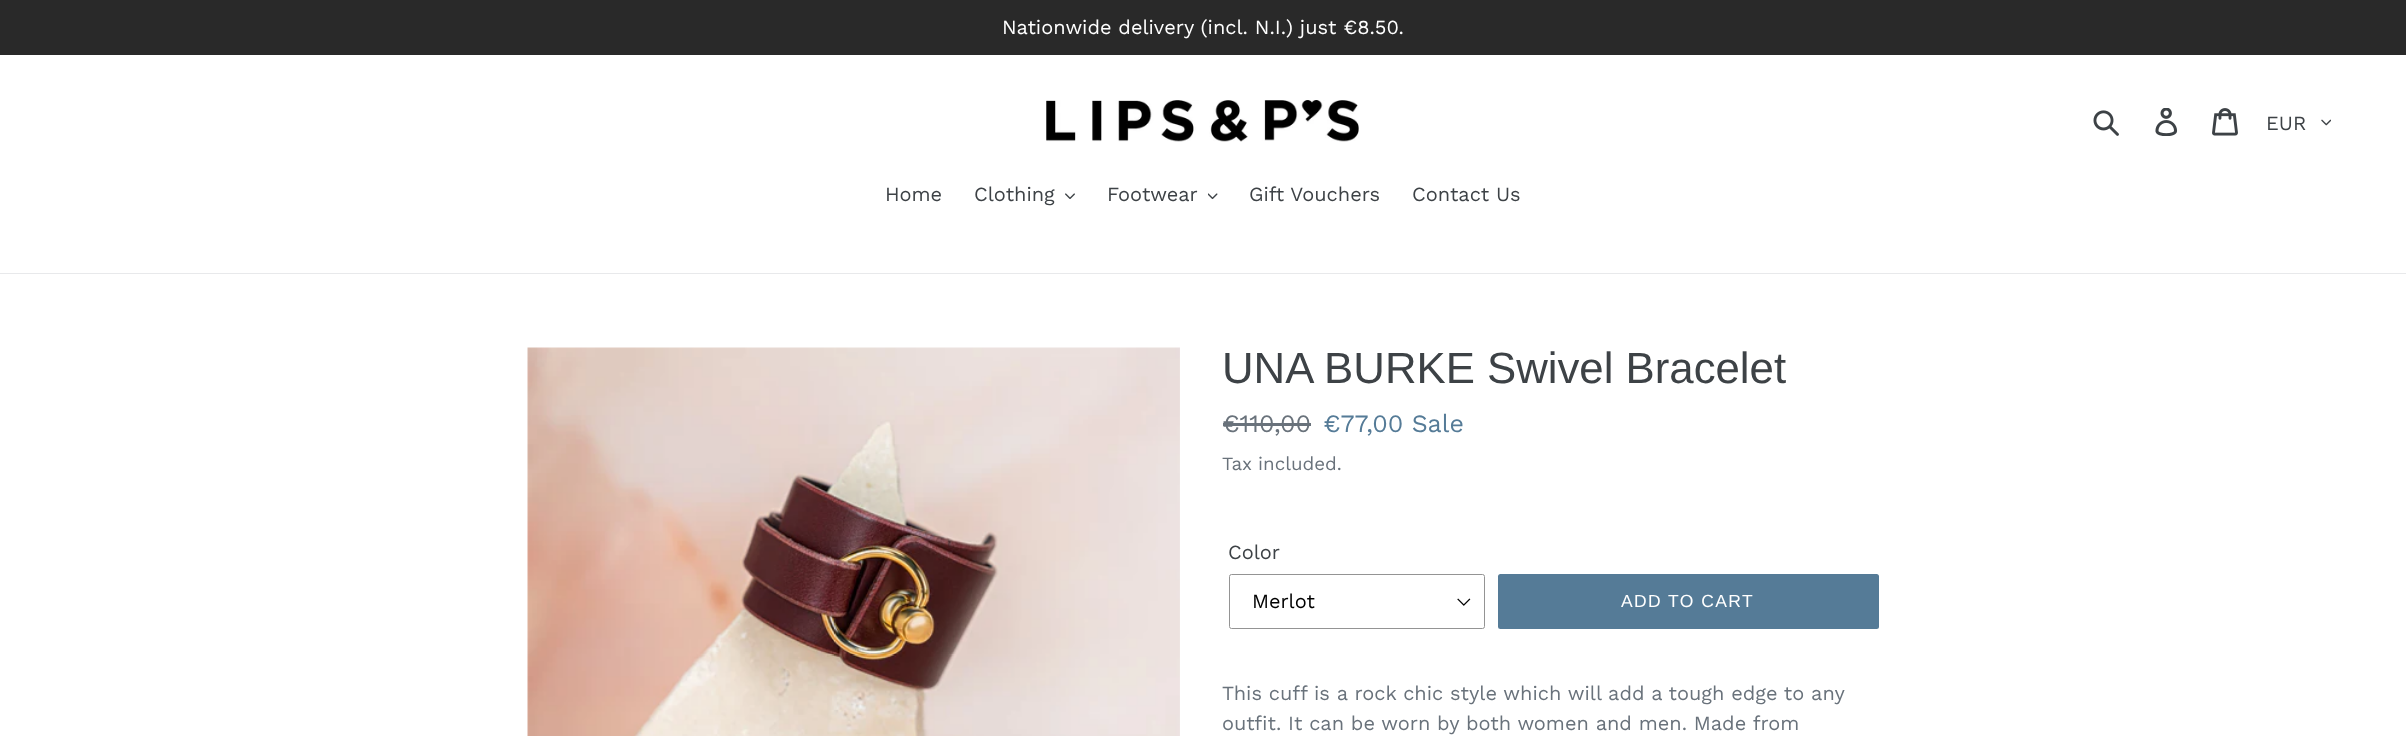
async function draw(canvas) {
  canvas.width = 2406
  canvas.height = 736
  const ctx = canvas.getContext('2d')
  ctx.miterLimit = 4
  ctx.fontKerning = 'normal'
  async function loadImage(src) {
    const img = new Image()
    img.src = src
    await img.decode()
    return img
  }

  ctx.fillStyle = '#fff'
  ctx.fillRect(0, 0, 2406, 736)
  ctx.fillStyle = '#292929'
  ctx.fillRect(0, 0, 2406, 55)
  ctx.font = '20px Work Sans'
  ctx.fillStyle = '#fff'
  ctx.fillText('Nationwide delivery (incl. N.I.) just €8.50.', 1002, 34)
  ctx.drawImage(await loadImage('image0.png'), 1046, 100, 313, 42)
  ctx.drawImage(await loadImage('image1.png'), 2093, 110, 26, 26)
  ctx.drawImage(await loadImage('image2.png'), 2155, 108, 23, 28)
  ctx.drawImage(await loadImage('image3.png'), 2212, 108, 26, 28)
  ctx.fillStyle = '#3d4246'
  ctx.fillText('EUR', 2266, 130)
  ctx.drawImage(await loadImage('image4.png'), 2321, 119, 10, 7)
  ctx.fillStyle = '#e8e9eb'
  ctx.fillRect(0, 273, 2406, 1)
  ctx.fillStyle = '#3d4246'
  ctx.fillText('Home', 885, 201)
  ctx.fillText('Clothing', 974, 201)
  ctx.drawImage(await loadImage('image5.png'), 1065, 193, 10, 6)
  ctx.fillText('Footwear', 1107, 201)
  ctx.drawImage(await loadImage('image6.png'), 1208, 193, 10, 7)
  ctx.fillText('Gift Vouchers', 1249, 201)
  ctx.fillText('Contact Us', 1412, 201)
  ctx.drawImage(await loadImage('image7.png'), 527, 347, 653, 389)
  ctx.font = '43.75px Arimo'
  ctx.fillText('UNA BURKE Swivel Bracelet', 1222, 383)
  ctx.font = '25px Work Sans'
  ctx.fillStyle = '#69727b'
  ctx.fillText('€110,00', 1222, 432)
  ctx.fillRect(1223, 423, 88, 3)
  ctx.fillStyle = '#557b97'
  ctx.fillText('€77,00 Sale', 1323, 432)
  ctx.font = '18.75px Work Sans'
  ctx.fillStyle = '#69727b'
  ctx.fillText('Tax included.', 1222, 470)
  ctx.font = '20px Work Sans'
  ctx.fillStyle = '#3d4246'
  ctx.fillText('Color', 1228, 559)
  ctx.drawImage(await loadImage('image8.png'), 1457, 598, 14, 8)
  ctx.beginPath()
  ctx.roundRect(1229.5, 574.5, 255, 54, 2)
  ctx.strokeStyle = '#949494'
  ctx.stroke()
  ctx.fillStyle = '#000'
  ctx.fillText('Merlot', 1252, 608)
  ctx.fillStyle = '#557b97'
  ctx.beginPath()
  ctx.roundRect(1498, 574, 381, 55, 2.5)
  ctx.fill()
  ctx.letterSpacing = '1.4px'
  ctx.font = '17.5px Arimo'
  ctx.fillStyle = '#fff'
  ctx.fillText('ADD TO CART', 1621, 607)
  ctx.letterSpacing = '0px'
  ctx.font = '20px Work Sans'
  ctx.fillStyle = '#69727b'
  ctx.fillText('This cuff is a rock chic style which will add a tough edge to any', 1222, 700)
  ctx.fillText('outfit. It can be worn by both women and men. Made from', 1222, 730)
}

draw(document.querySelector('canvas'))
